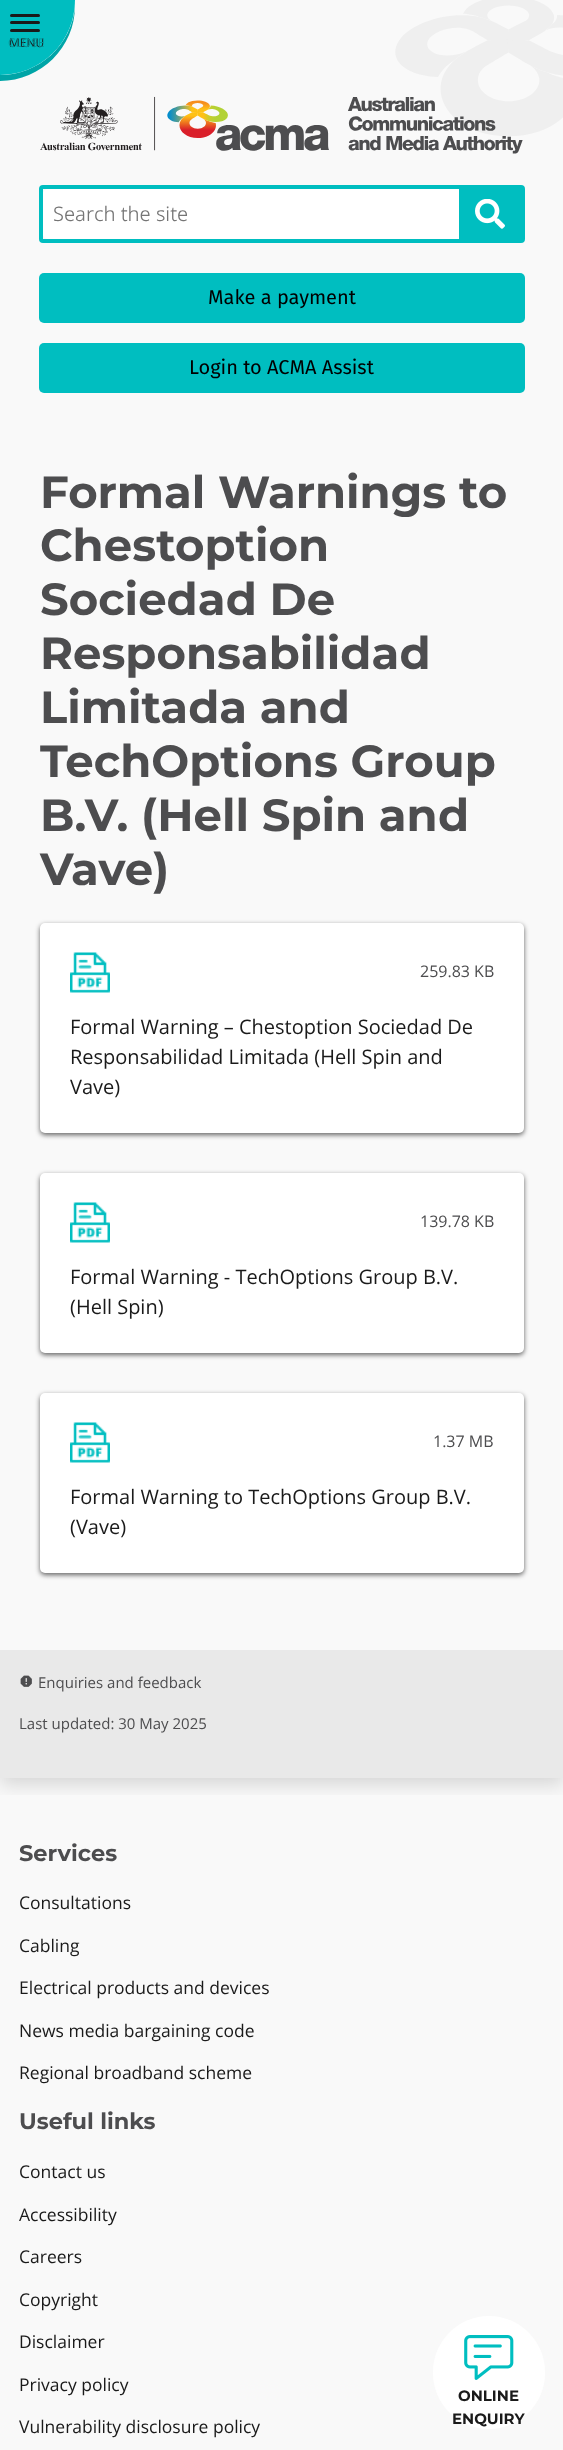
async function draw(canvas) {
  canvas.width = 563
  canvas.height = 2450
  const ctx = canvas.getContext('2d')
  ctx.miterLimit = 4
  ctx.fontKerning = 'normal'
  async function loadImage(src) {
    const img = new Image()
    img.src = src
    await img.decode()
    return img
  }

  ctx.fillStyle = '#f9f9f9'
  ctx.fillRect(0, 0, 563, 2450)
  ctx.drawImage(await loadImage('image0.png'), 395, 0, 168, 136)
  ctx.save()
  ctx.beginPath()
  ctx.rect(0, 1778, 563, 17)
  ctx.clip()
  ctx.fillStyle = '#00000026'
  ctx.filter = 'blur(9.5px)'
  ctx.beginPath()
  ctx.rect(0, 6, 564, 1778)
  ctx.fill()
  ctx.filter = 'none'
  ctx.restore()
  ctx.fillStyle = '#00a5a7'
  ctx.beginPath()
  ctx.moveTo(0, 75)
  ctx.lineTo(0, 81)
  ctx.bezierCurveTo(41, 81, 75, 47, 75, 6)
  ctx.bezierCurveTo(72, 45, 39, 75, 0, 75)
  ctx.closePath()
  ctx.fill()
  ctx.fillStyle = '#00bdc0'
  ctx.beginPath()
  ctx.roundRect(0, 0, 75, 75, [0, 0, 75, 0])
  ctx.fill()
  ctx.fillStyle = '#1a1a1a'
  ctx.beginPath()
  ctx.roundRect(10, 21, 30, 3, 1.5)
  ctx.fill()
  ctx.beginPath()
  ctx.roundRect(10, 14, 30, 3, 1.5)
  ctx.fill()
  ctx.beginPath()
  ctx.roundRect(10, 29, 30, 3, 1.5)
  ctx.fill()
  ctx.font = '12px Open Sans'
  ctx.fillText('MENU', 9, 47)
  ctx.fillStyle = '#079092'
  ctx.fillText('CLOSE', 8, 47)
  ctx.drawImage(await loadImage('image1.png'), 40, 96, 483, 58)
  ctx.beginPath()
  ctx.roundRect(41, 187, 482, 54, 2)
  ctx.strokeStyle = '#00bec0'
  ctx.lineWidth = 4
  ctx.stroke()
  ctx.fillStyle = '#fff'
  ctx.beginPath()
  ctx.roundRect(43, 189, 416, 50, [5, 0, 0, 5])
  ctx.fill()
  ctx.font = '300 20px Open Sans'
  ctx.fillStyle = '#757575'
  ctx.fillText('Search the site', 53, 221)
  ctx.fillStyle = '#00bec0'
  ctx.fillRect(459, 189, 62, 50)
  ctx.drawImage(await loadImage('image2.png'), 475, 199, 30, 30)
  ctx.beginPath()
  ctx.roundRect(39, 273, 486, 50, 5)
  ctx.fill()
  ctx.font = '20px Fira Sans'
  ctx.fillStyle = '#000'
  ctx.fillText('Make a payment', 208, 304)
  ctx.fillStyle = '#00bec0'
  ctx.beginPath()
  ctx.roundRect(39, 343, 486, 50, 5)
  ctx.fill()
  ctx.fillStyle = '#000'
  ctx.fillText('Login to ACMA Assist', 189, 374)
  ctx.font = 'bold 45px Montserrat'
  ctx.fillStyle = '#4d4d4f'
  ctx.fillText('Formal Warnings to', 40, 508)
  ctx.fillText('Chestoption', 40, 561)
  ctx.fillText('Sociedad De', 40, 615)
  ctx.fillText('Responsabilidad', 40, 669)
  ctx.fillText('Limitada and', 40, 723)
  ctx.fillText('TechOptions Group', 40, 777)
  ctx.fillText('B.V. (Hell Spin and', 40, 831)
  ctx.fillText('Vave)', 40, 885)
  ctx.fillStyle = '#00000099'
  ctx.filter = 'blur(2.5px)'
  ctx.beginPath()
  ctx.roundRect(40, 925, 484, 210, 5)
  ctx.fill()
  ctx.filter = 'none'
  ctx.fillStyle = '#fff'
  ctx.beginPath()
  ctx.roundRect(40, 923, 484, 210, 5)
  ctx.fill()
  ctx.drawImage(await loadImage('image3.png'), 70, 952, 40, 41)
  ctx.font = '16px Open Sans'
  ctx.fillStyle = '#4d4d4f'
  ctx.fillText('259.83 KB', 420, 977)
  ctx.font = '20px Open Sans'
  ctx.fillStyle = '#1a1a1a'
  ctx.fillText('Formal Warning – Chestoption Sociedad De', 70, 1034)
  ctx.fillText('Responsabilidad Limitada (Hell Spin and', 70, 1064)
  ctx.fillText('Vave)', 70, 1094)
  ctx.fillStyle = '#00000099'
  ctx.filter = 'blur(2.5px)'
  ctx.beginPath()
  ctx.roundRect(40, 1175, 484, 180, 5)
  ctx.fill()
  ctx.filter = 'none'
  ctx.fillStyle = '#fff'
  ctx.beginPath()
  ctx.roundRect(40, 1173, 484, 180, 5)
  ctx.fill()
  ctx.drawImage(await loadImage('image3.png'), 70, 1202, 40, 41)
  ctx.font = '16px Open Sans'
  ctx.fillStyle = '#4d4d4f'
  ctx.fillText('139.78 KB', 420, 1227)
  ctx.font = '20px Open Sans'
  ctx.fillStyle = '#1a1a1a'
  ctx.fillText('Formal Warning - TechOptions Group B.V.', 70, 1284)
  ctx.fillText('(Hell Spin)', 70, 1314)
  ctx.fillStyle = '#00000099'
  ctx.filter = 'blur(2.5px)'
  ctx.beginPath()
  ctx.roundRect(40, 1395, 484, 180, 5)
  ctx.fill()
  ctx.filter = 'none'
  ctx.fillStyle = '#fff'
  ctx.beginPath()
  ctx.roundRect(40, 1393, 484, 180, 5)
  ctx.fill()
  ctx.drawImage(await loadImage('image3.png'), 70, 1422, 40, 41)
  ctx.font = '16px Open Sans'
  ctx.fillStyle = '#4d4d4f'
  ctx.fillText('1.37 MB', 433, 1447)
  ctx.font = '20px Open Sans'
  ctx.fillStyle = '#1a1a1a'
  ctx.fillText('Formal Warning to TechOptions Group B.V.', 70, 1504)
  ctx.fillText('(Vave)', 70, 1534)
  ctx.fillStyle = '#e9e9e9'
  ctx.fillRect(0, 1650, 563, 128)
  ctx.drawImage(await loadImage('image4.png'), 20, 1675, 12, 12)
  ctx.font = '15px Open Sans'
  ctx.fillStyle = '#4d4d4f'
  ctx.fillText('Enquiries and feedback', 38, 1688)
  ctx.fillText('Last updated: 30 May 2025', 19, 1729)
  ctx.font = 'bold 22.5px Montserrat'
  ctx.fillText('Services', 19, 1861)
  ctx.font = '17.5px Open Sans'
  ctx.fillStyle = '#1a1a1a'
  ctx.fillText('Consultations', 19, 1909)
  ctx.fillText('Cabling', 19, 1952)
  ctx.fillText('Electrical products and devices', 19, 1994)
  ctx.fillText('News media bargaining code', 19, 2037)
  ctx.fillText('Regional broadband scheme', 19, 2079)
  ctx.font = 'bold 22.5px Montserrat'
  ctx.fillStyle = '#4d4d4f'
  ctx.fillText('Useful links', 19, 2129)
  ctx.font = '17.5px Open Sans'
  ctx.fillStyle = '#1a1a1a'
  ctx.fillText('Contact us', 19, 2178)
  ctx.fillText('Accessibility', 19, 2221)
  ctx.fillText('Careers', 19, 2263)
  ctx.fillText('Copyright', 19, 2306)
  ctx.fillText('Disclaimer', 19, 2348)
  ctx.fillText('Privacy policy', 19, 2391)
  ctx.fillText('Vulnerability disclosure policy', 19, 2433)
  ctx.fillStyle = '#fff'
  ctx.beginPath()
  ctx.roundRect(433, 2316, 112, 113, 56)
  ctx.fill()
  ctx.drawImage(await loadImage('image5.png'), 464, 2335, 50, 45)
  ctx.font = 'bold 15px Montserrat'
  ctx.fillStyle = '#1a1a1a'
  ctx.fillText('ONLINE', 458, 2401)
  ctx.fillText('ENQUIRY', 452, 2424)
}

draw(document.querySelector('canvas'))
